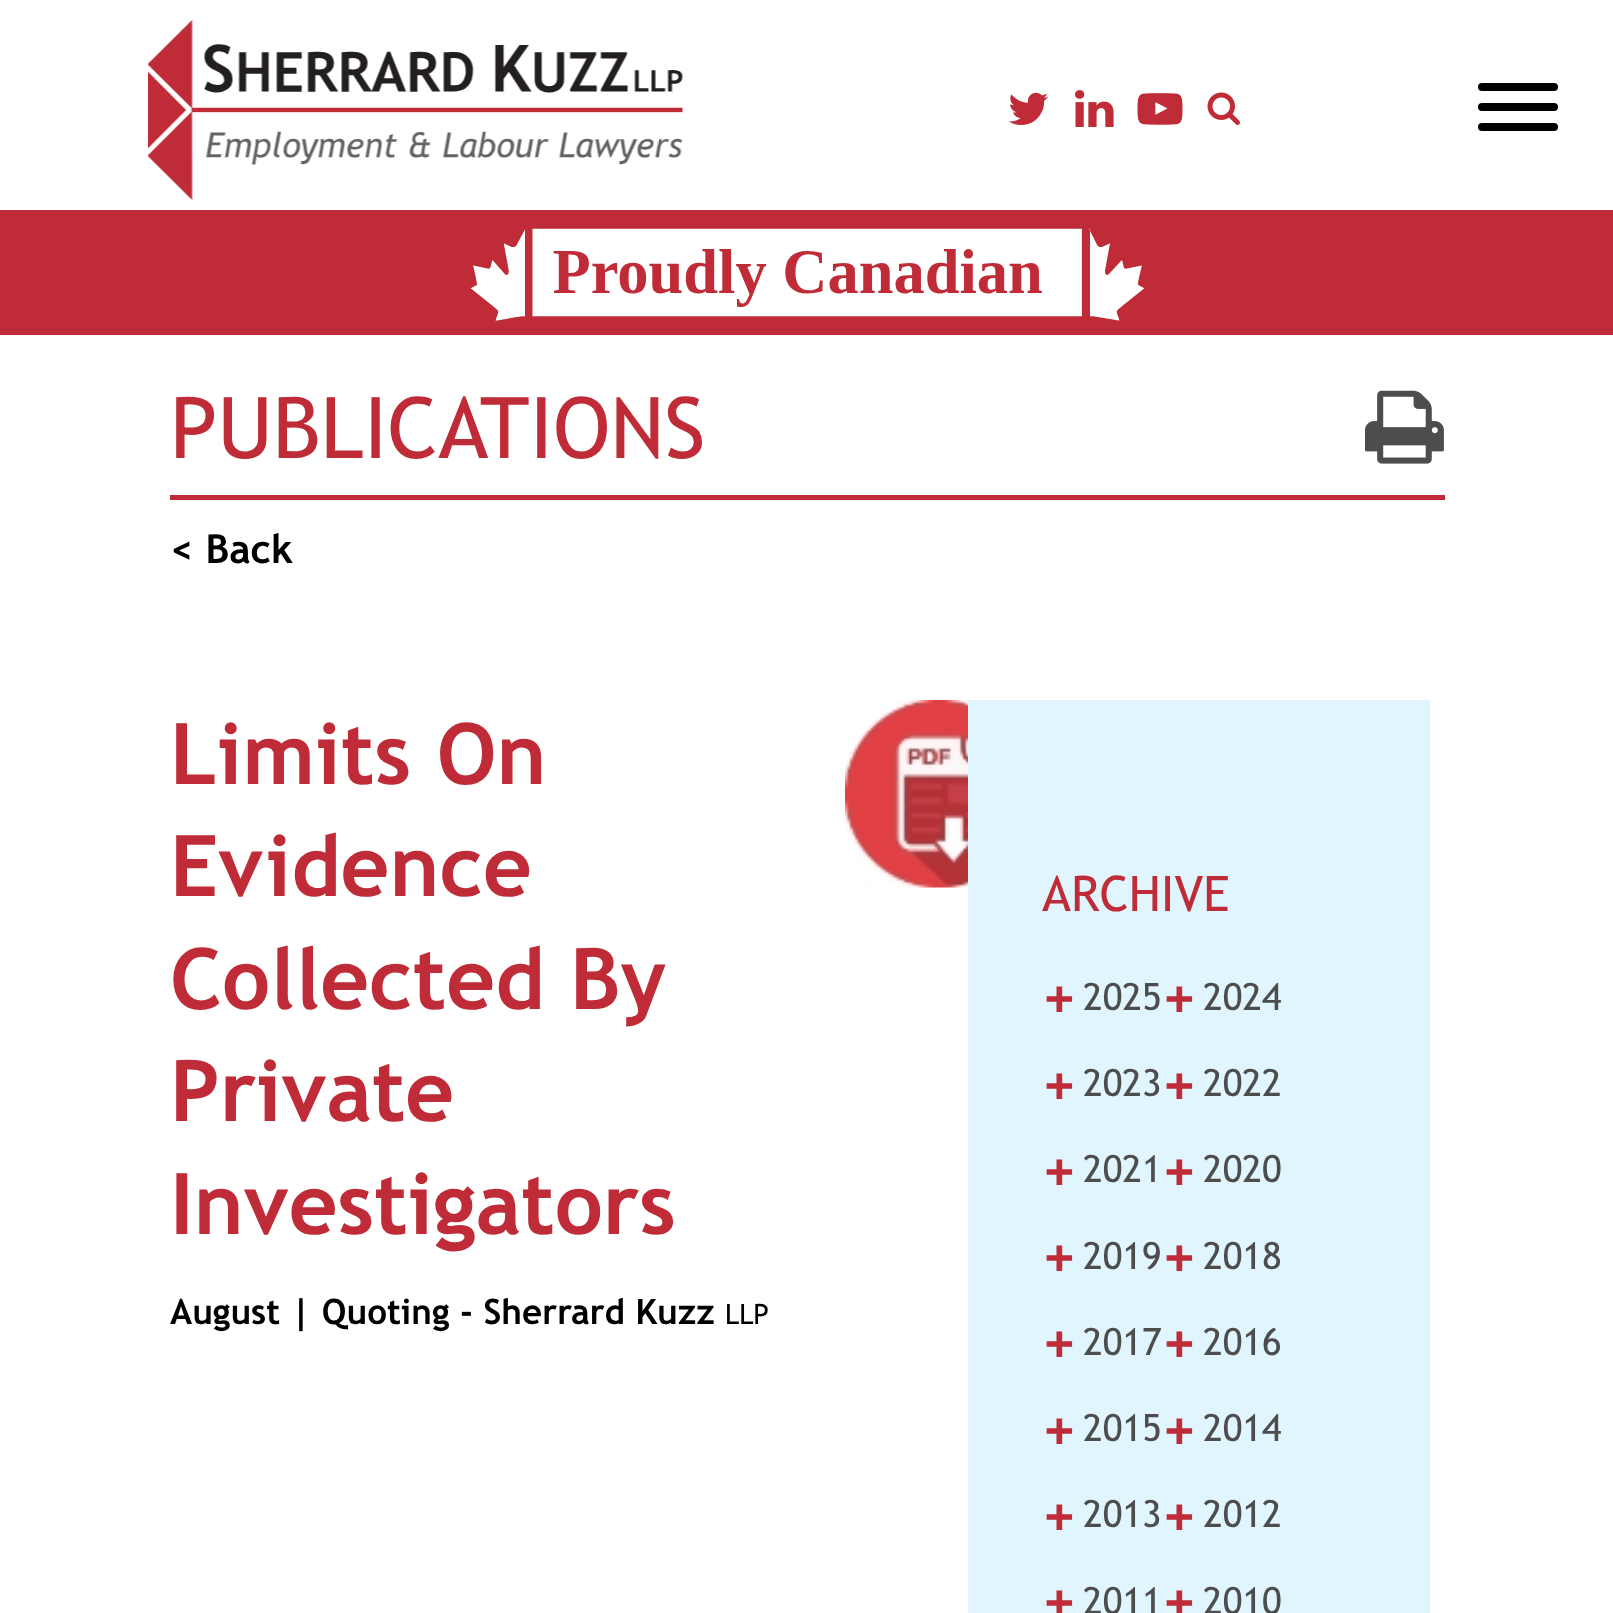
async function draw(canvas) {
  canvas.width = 1613
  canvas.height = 1613
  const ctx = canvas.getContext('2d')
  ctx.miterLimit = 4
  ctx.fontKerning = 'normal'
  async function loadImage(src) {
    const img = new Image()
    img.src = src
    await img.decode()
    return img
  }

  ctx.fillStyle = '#fff'
  ctx.fillRect(0, 0, 1613, 1613)
  ctx.drawImage(await loadImage('image0.png'), 148, 20, 535, 180)
  ctx.drawImage(await loadImage('image1.png'), 1008, 92, 40, 33)
  ctx.drawImage(await loadImage('image2.png'), 1075, 90, 39, 37)
  ctx.drawImage(await loadImage('image3.png'), 1137, 93, 46, 32)
  ctx.drawImage(await loadImage('image4.png'), 1207, 92, 33, 33)
  ctx.fillStyle = '#000'
  ctx.beginPath()
  ctx.roundRect(1478, 103, 80, 8, 4)
  ctx.fill()
  ctx.beginPath()
  ctx.roundRect(1478, 83, 80, 8, 4)
  ctx.fill()
  ctx.beginPath()
  ctx.roundRect(1478, 123, 80, 8, 4)
  ctx.fill()
  ctx.fillStyle = '#bf2c37'
  ctx.fillRect(0, 210, 1613, 125)
  ctx.drawImage(await loadImage('image5.png'), 470, 228, 675, 93)
  ctx.fillRect(170, 495, 1275, 5)
  ctx.font = '85px Trebuchet MS'
  ctx.fillText('PUBLICATIONS', 170, 458)
  ctx.drawImage(await loadImage('image6.png'), 1365, 390, 79, 74)
  ctx.font = 'bold 40px Trebuchet MS'
  ctx.fillStyle = '#000'
  ctx.fillText('< Back', 170, 563)
  ctx.font = 'bold 85px Trebuchet MS'
  ctx.fillStyle = '#bf2c37'
  ctx.fillText('Limits On', 170, 784)
  ctx.fillText('Evidence', 170, 896)
  ctx.fillText('Collected By', 170, 1009)
  ctx.fillText('Private', 170, 1121)
  ctx.fillText('Investigators', 170, 1234)
  ctx.drawImage(await loadImage('image7.png'), 845, 700, 123, 188)
  ctx.font = 'bold 35px Trebuchet MS'
  ctx.fillStyle = '#000'
  ctx.fillText('August | Quoting - Sherrard Kuzz', 170, 1324)
  ctx.font = '28px Trebuchet MS'
  ctx.fillText('LLP', 725, 1324)
  ctx.fillStyle = '#e1f5fe'
  ctx.fillRect(968, 700, 462, 913)
  ctx.font = '49px Trebuchet MS'
  ctx.fillStyle = '#bf2c37'
  ctx.fillText('ARCHIVE', 1042, 911)
  ctx.font = 'bold 58px Trebuchet MS'
  ctx.fillText('+', 1042, 1017)
  ctx.font = '37.5px Trebuchet MS'
  ctx.fillStyle = '#4d4d4d'
  ctx.fillText('2025', 1083, 1010)
  ctx.font = 'bold 58px Trebuchet MS'
  ctx.fillStyle = '#bf2c37'
  ctx.fillText('+', 1162, 1017)
  ctx.font = '37.5px Trebuchet MS'
  ctx.fillStyle = '#4d4d4d'
  ctx.fillText('2024', 1203, 1010)
  ctx.font = 'bold 58px Trebuchet MS'
  ctx.fillStyle = '#bf2c37'
  ctx.fillText('+', 1042, 1104)
  ctx.font = '37.5px Trebuchet MS'
  ctx.fillStyle = '#4d4d4d'
  ctx.fillText('2023', 1083, 1096)
  ctx.font = 'bold 58px Trebuchet MS'
  ctx.fillStyle = '#bf2c37'
  ctx.fillText('+', 1162, 1104)
  ctx.font = '37.5px Trebuchet MS'
  ctx.fillStyle = '#4d4d4d'
  ctx.fillText('2022', 1203, 1096)
  ctx.font = 'bold 58px Trebuchet MS'
  ctx.fillStyle = '#bf2c37'
  ctx.fillText('+', 1042, 1190)
  ctx.font = '37.5px Trebuchet MS'
  ctx.fillStyle = '#4d4d4d'
  ctx.fillText('2021', 1083, 1182)
  ctx.font = 'bold 58px Trebuchet MS'
  ctx.fillStyle = '#bf2c37'
  ctx.fillText('+', 1162, 1190)
  ctx.font = '37.5px Trebuchet MS'
  ctx.fillStyle = '#4d4d4d'
  ctx.fillText('2020', 1203, 1182)
  ctx.font = 'bold 58px Trebuchet MS'
  ctx.fillStyle = '#bf2c37'
  ctx.fillText('+', 1042, 1276)
  ctx.font = '37.5px Trebuchet MS'
  ctx.fillStyle = '#4d4d4d'
  ctx.fillText('2019', 1083, 1269)
  ctx.font = 'bold 58px Trebuchet MS'
  ctx.fillStyle = '#bf2c37'
  ctx.fillText('+', 1162, 1276)
  ctx.font = '37.5px Trebuchet MS'
  ctx.fillStyle = '#4d4d4d'
  ctx.fillText('2018', 1203, 1269)
  ctx.font = 'bold 58px Trebuchet MS'
  ctx.fillStyle = '#bf2c37'
  ctx.fillText('+', 1042, 1362)
  ctx.font = '37.5px Trebuchet MS'
  ctx.fillStyle = '#4d4d4d'
  ctx.fillText('2017', 1083, 1355)
  ctx.font = 'bold 58px Trebuchet MS'
  ctx.fillStyle = '#bf2c37'
  ctx.fillText('+', 1162, 1362)
  ctx.font = '37.5px Trebuchet MS'
  ctx.fillStyle = '#4d4d4d'
  ctx.fillText('2016', 1203, 1355)
  ctx.font = 'bold 58px Trebuchet MS'
  ctx.fillStyle = '#bf2c37'
  ctx.fillText('+', 1042, 1449)
  ctx.font = '37.5px Trebuchet MS'
  ctx.fillStyle = '#4d4d4d'
  ctx.fillText('2015', 1083, 1441)
  ctx.font = 'bold 58px Trebuchet MS'
  ctx.fillStyle = '#bf2c37'
  ctx.fillText('+', 1162, 1449)
  ctx.font = '37.5px Trebuchet MS'
  ctx.fillStyle = '#4d4d4d'
  ctx.fillText('2014', 1203, 1441)
  ctx.font = 'bold 58px Trebuchet MS'
  ctx.fillStyle = '#bf2c37'
  ctx.fillText('+', 1042, 1535)
  ctx.font = '37.5px Trebuchet MS'
  ctx.fillStyle = '#4d4d4d'
  ctx.fillText('2013', 1083, 1527)
  ctx.font = 'bold 58px Trebuchet MS'
  ctx.fillStyle = '#bf2c37'
  ctx.fillText('+', 1162, 1535)
  ctx.font = '37.5px Trebuchet MS'
  ctx.fillStyle = '#4d4d4d'
  ctx.fillText('2012', 1203, 1527)
  ctx.font = 'bold 58px Trebuchet MS'
  ctx.fillStyle = '#bf2c37'
  ctx.fillText('+', 1042, 1621)
  ctx.font = '37.5px Trebuchet MS'
  ctx.fillStyle = '#4d4d4d'
  ctx.fillText('2011', 1083, 1614)
  ctx.font = 'bold 58px Trebuchet MS'
  ctx.fillStyle = '#bf2c37'
  ctx.fillText('+', 1162, 1621)
  ctx.font = '37.5px Trebuchet MS'
  ctx.fillStyle = '#4d4d4d'
  ctx.fillText('2010', 1203, 1614)
}

draw(document.querySelector('canvas'))
